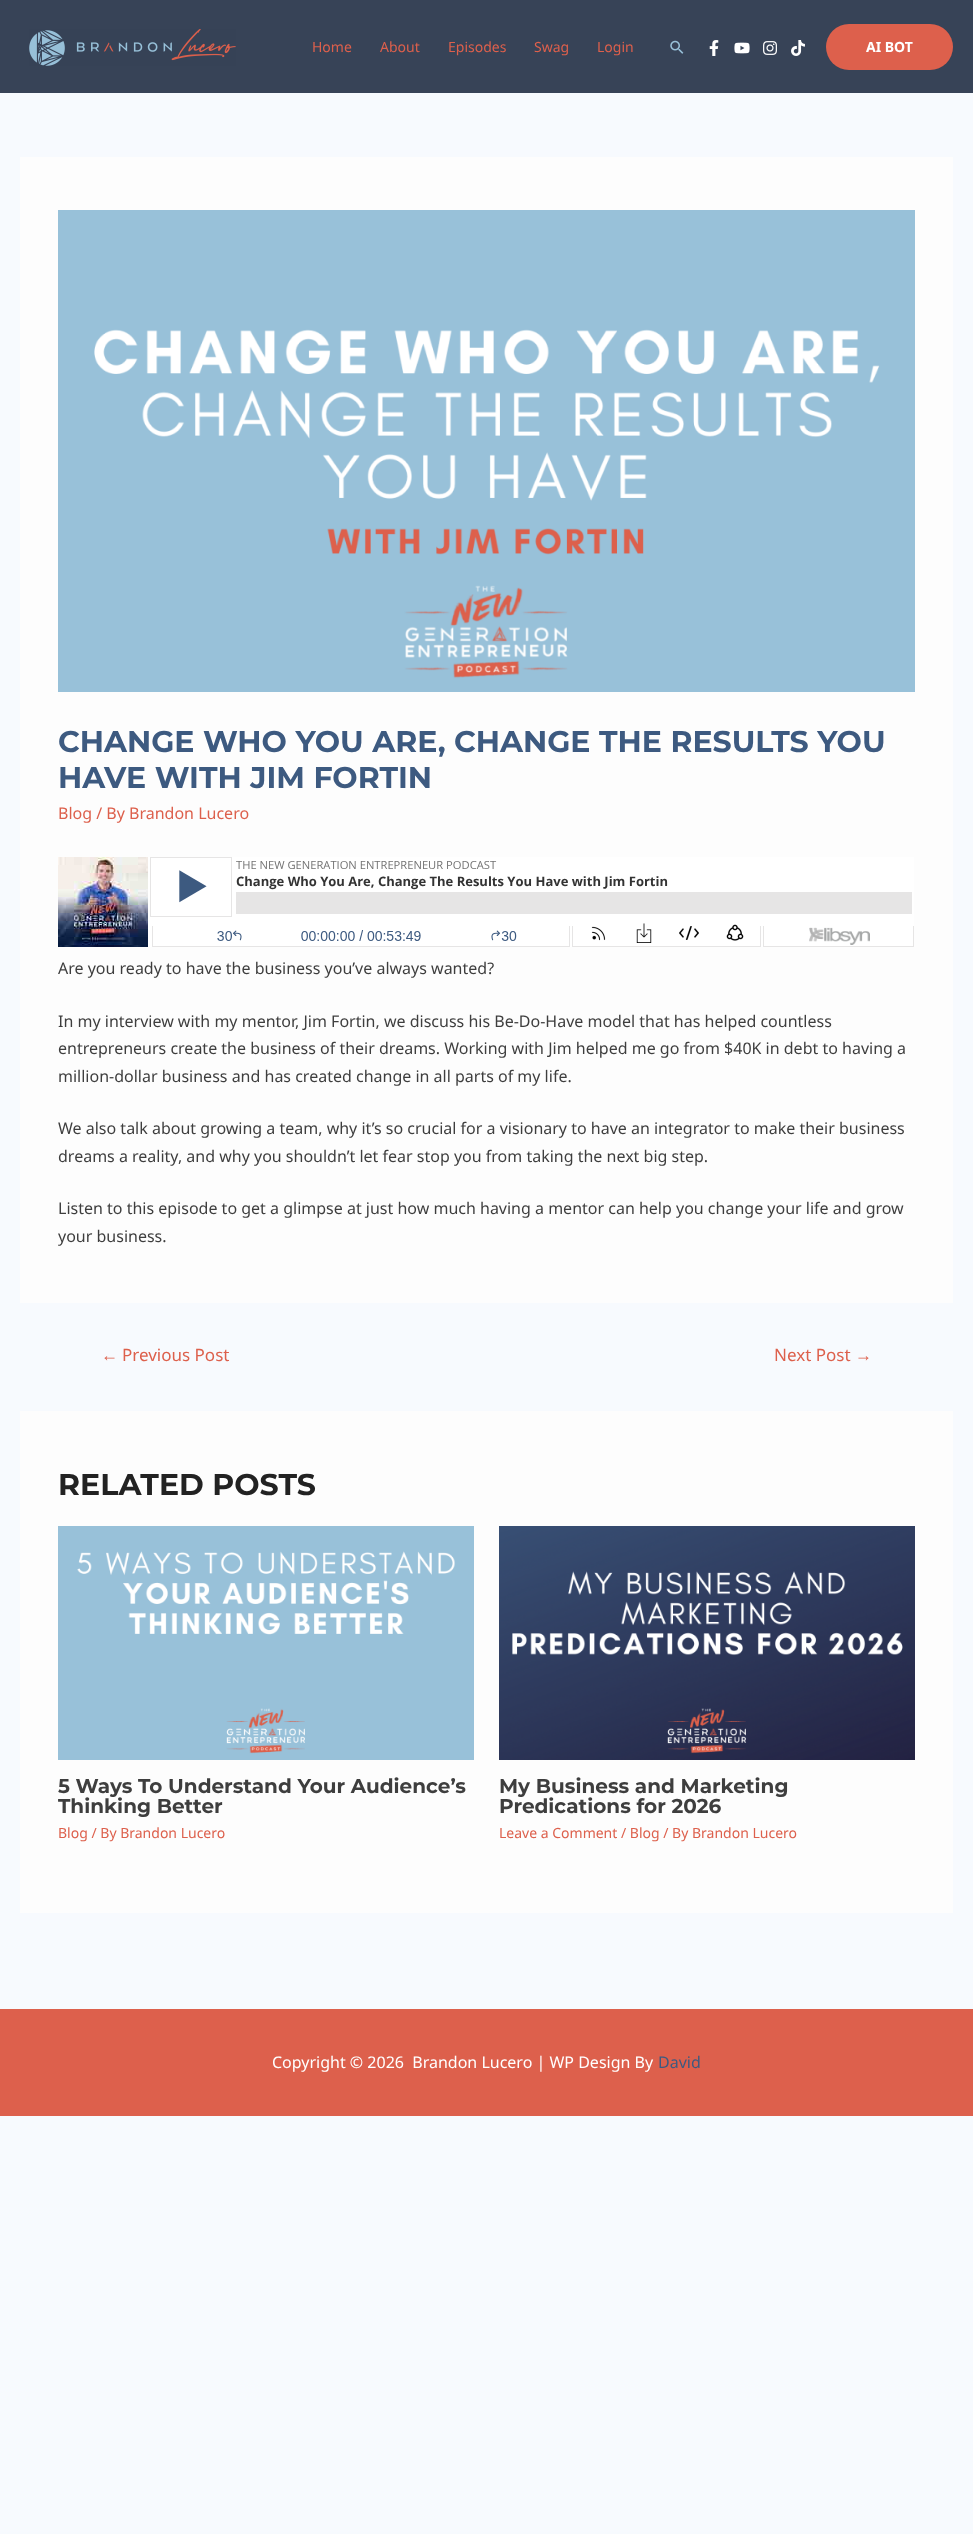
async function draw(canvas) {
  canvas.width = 973
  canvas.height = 2534
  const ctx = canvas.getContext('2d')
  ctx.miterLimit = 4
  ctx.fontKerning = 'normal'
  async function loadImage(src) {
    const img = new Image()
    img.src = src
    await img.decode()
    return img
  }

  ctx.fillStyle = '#f7fafe'
  ctx.fillRect(0, 0, 973, 2534)
  ctx.fillStyle = '#374357'
  ctx.fillRect(0, 0, 973, 93)
  ctx.drawImage(await loadImage('image0.png'), 29, 29, 207, 37)
  ctx.font = '14px Noto Sans'
  ctx.fillStyle = '#dd604c'
  ctx.fillText('Home', 312, 52)
  ctx.fillText('About', 380, 52)
  ctx.fillText('Episodes', 448, 52)
  ctx.fillText('Swag', 534, 52)
  ctx.fillText('Login', 597, 52)
  ctx.drawImage(await loadImage('image1.png'), 670, 40, 14, 14)
  ctx.drawImage(await loadImage('image2.png'), 709, 40, 10, 16)
  ctx.drawImage(await loadImage('image3.png'), 734, 42, 16, 12)
  ctx.drawImage(await loadImage('image4.png'), 763, 41, 14, 14)
  ctx.drawImage(await loadImage('image5.png'), 791, 40, 14, 16)
  ctx.beginPath()
  ctx.roundRect(826, 24, 127, 46, 23)
  ctx.fill()
  ctx.font = 'bold 14px Noto Sans'
  ctx.fillStyle = '#fff'
  ctx.fillText('AI BOT', 866, 52)
  ctx.fillStyle = '#fdfdfd'
  ctx.fillRect(20, 157, 933, 1146)
  ctx.drawImage(await loadImage('image6.png'), 58, 210, 857, 482)
  ctx.font = '100 30px Montserrat'
  ctx.fillStyle = '#3d5a80'
  ctx.fillText('CHANGE WHO YOU ARE, CHANGE THE RESULTS YOU', 58, 752)
  ctx.fillText('HAVE WITH JIM FORTIN', 58, 788)
  ctx.font = '16px Noto Sans'
  ctx.fillStyle = '#dd604c'
  ctx.fillText('Blog / By Brandon Lucero', 58, 819)
  ctx.drawImage(await loadImage('image7.png'), 58, 857, 856, 90)
  ctx.fillStyle = '#3e3e3e'
  ctx.fillText('Are you ready to have the business you’ve always wanted?', 58, 974)
  ctx.fillText('In my interview with my mentor, Jim Fortin, we discuss his Be-Do-Have model that has helped countless', 58, 1027)
  ctx.fillText('entrepreneurs create the business of their dreams. Working with Jim helped me go from $40K in debt to having a', 58, 1054)
  ctx.fillText('million-dollar business and has created change in all parts of my life.', 58, 1082)
  ctx.fillText('We also talk about growing a team, why it’s so crucial for a visionary to have an integrator to make their business', 58, 1134)
  ctx.fillText('dreams a reality, and why you shouldn’t let fear stop you from taking the next big step.', 58, 1162)
  ctx.fillText('Listen to this episode to get a glimpse at just how much having a mentor can help you change your life and grow', 58, 1214)
  ctx.fillText('your business.', 58, 1242)
  ctx.font = '17px Liberation Sans'
  ctx.fillStyle = '#dd604c'
  ctx.fillText('←', 101, 1361)
  ctx.font = '17px Noto Sans'
  ctx.fillText('Previous Post', 122, 1361)
  ctx.fillText('Next Post', 774, 1361)
  ctx.font = '17px Liberation Sans'
  ctx.fillText('→', 855, 1361)
  ctx.fillStyle = '#fdfdfd'
  ctx.fillRect(20, 1411, 933, 502)
  ctx.font = '100 30px Montserrat'
  ctx.fillStyle = '#222'
  ctx.fillText('RELATED POSTS', 58, 1495)
  ctx.drawImage(await loadImage('image8.png'), 58, 1526, 416, 234)
  ctx.font = '100 20px Montserrat'
  ctx.fillStyle = '#3e3e3e'
  ctx.fillText('5 Ways To Understand Your Audience’s', 58, 1793)
  ctx.fillText('Thinking Better', 58, 1813)
  ctx.font = '14px Noto Sans'
  ctx.fillStyle = '#dd604c'
  ctx.fillText('Blog / By Brandon Lucero', 58, 1838)
  ctx.drawImage(await loadImage('image9.png'), 499, 1526, 416, 234)
  ctx.font = '100 20px Montserrat'
  ctx.fillStyle = '#3e3e3e'
  ctx.fillText('My Business and Marketing', 499, 1793)
  ctx.fillText('Predications for 2026', 499, 1813)
  ctx.font = '14px Noto Sans'
  ctx.fillStyle = '#dd604c'
  ctx.fillText('Leave a Comment / Blog / By Brandon Lucero', 499, 1838)
  ctx.fillRect(0, 2009, 973, 107)
  ctx.font = '16px Noto Sans'
  ctx.fillStyle = '#fff'
  ctx.fillText('Copyright © 2026  Brandon Lucero | WP Design By', 272, 2068)
  ctx.fillStyle = '#3d5a80'
  ctx.fillText('David', 658, 2068)
}

draw(document.querySelector('canvas'))
